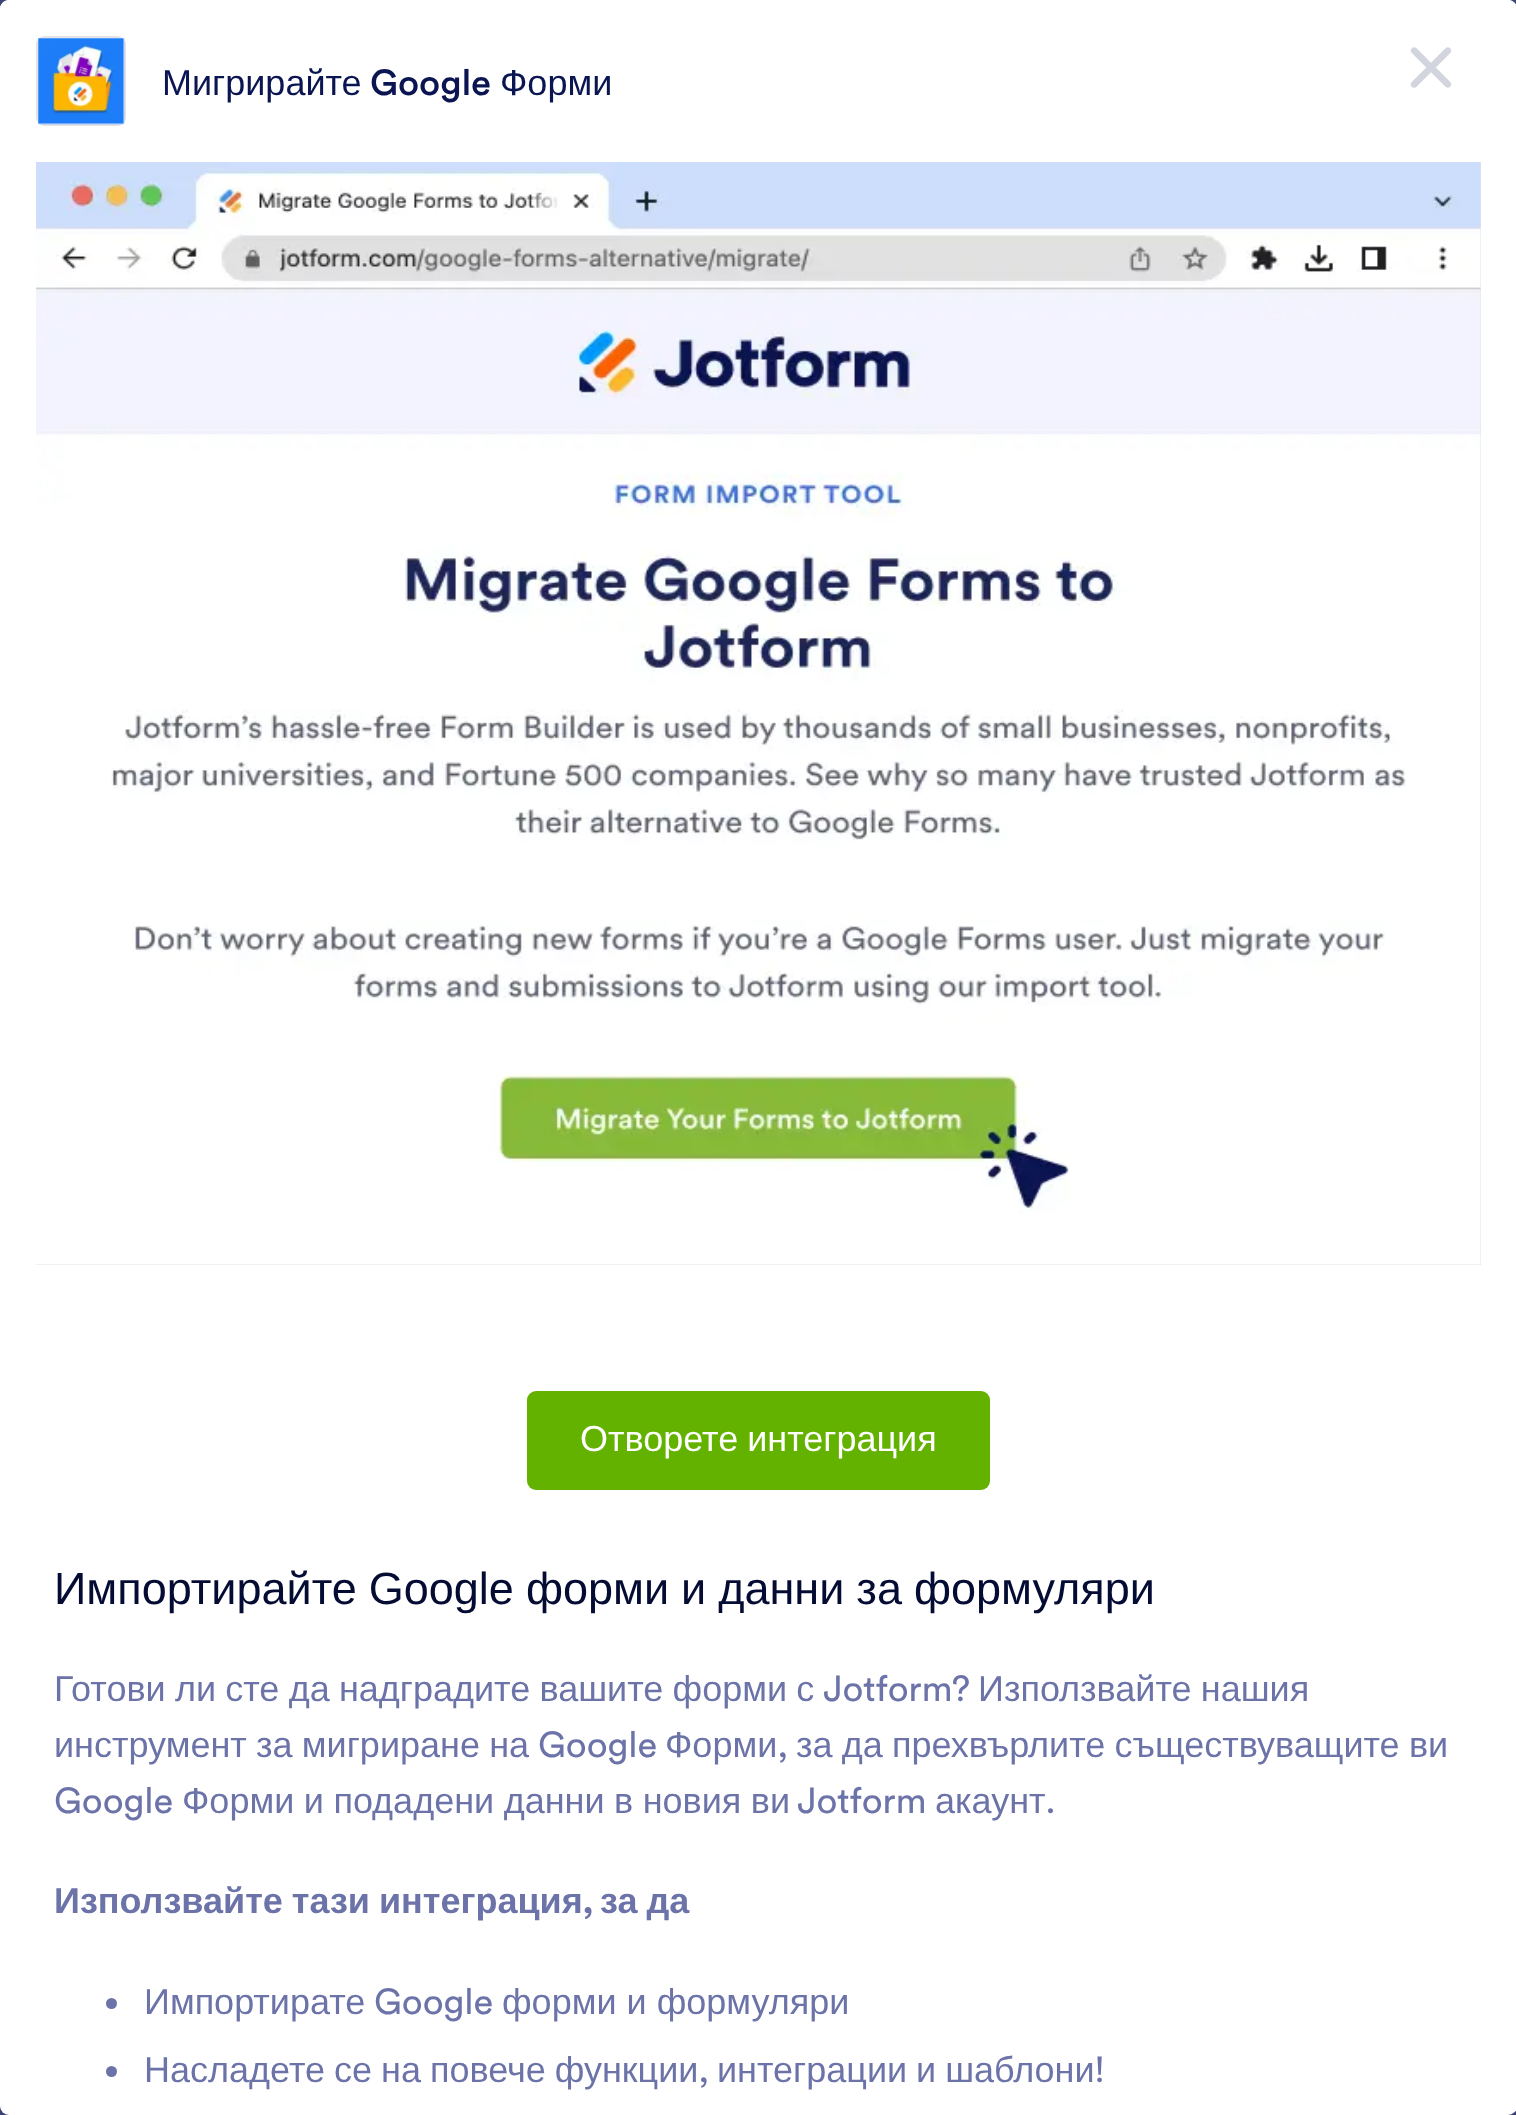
async function draw(canvas) {
  canvas.width = 1516
  canvas.height = 2115
  const ctx = canvas.getContext('2d')
  ctx.miterLimit = 4
  ctx.fontKerning = 'normal'
  async function loadImage(src) {
    const img = new Image()
    img.src = src
    await img.decode()
    return img
  }

  ctx.fillStyle = '#3b4474'
  ctx.fillRect(0, 0, 1516, 2115)
  ctx.fillStyle = '#394174'
  ctx.fillRect(0, 2106, 1516, 9)
  ctx.fillStyle = '#fff'
  ctx.beginPath()
  ctx.roundRect(0, 0, 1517, 2115, 9)
  ctx.fill()
  ctx.beginPath()
  ctx.moveTo(9, 0)
  ctx.lineTo(1508, 0)
  ctx.bezierCurveTo(1513, 0, 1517, 4, 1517, 9)
  ctx.lineTo(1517, 162)
  ctx.lineTo(0, 162)
  ctx.lineTo(0, 9)
  ctx.bezierCurveTo(0, 4, 4, 0, 9, 0)
  ctx.closePath()
  ctx.fill()
  ctx.drawImage(await loadImage('image0.png'), 1410, 47, 42, 41)
  ctx.drawImage(await loadImage('image1.png'), 36, 36, 90, 90)
  ctx.beginPath()
  ctx.roundRect(37, 37, 88, 88, 8)
  ctx.strokeStyle = '#e2e3e9'
  ctx.lineWidth = 2
  ctx.stroke()
  ctx.fillRect(38, 38, 86, 86)
  ctx.drawImage(await loadImage('image2.png'), 38, 38, 87, 87)
  ctx.font = '36px Liberation Sans'
  ctx.fillStyle = '#0a1551'
  ctx.fillText('Мигрирайте', 162, 95)
  ctx.font = '500 36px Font'
  ctx.fillText('Google', 370, 95)
  ctx.font = '36px Liberation Sans'
  ctx.fillText('Форми', 500, 95)
  ctx.fillStyle = '#e2e3e9'
  ctx.fillRect(36, 162, 1445, 1103)
  ctx.drawImage(await loadImage('image3.png'), 36, 162, 1445, 1103)
  ctx.fillStyle = '#64b200'
  ctx.beginPath()
  ctx.roundRect(527, 1391, 463, 99, 9)
  ctx.fill()
  ctx.wordSpacing = '-1px'
  ctx.fillStyle = '#fff'
  ctx.fillText('Отворете интеграция', 580, 1451)
  ctx.wordSpacing = '-0.5px'
  ctx.font = '45px Liberation Sans'
  ctx.fillStyle = '#050c34'
  ctx.fillText('Импортирайте Google форми и данни за формуляри', 54, 1604)
  ctx.wordSpacing = '-0.75px'
  ctx.font = '36px Liberation Sans'
  ctx.fillStyle = '#6c73a8'
  ctx.fillText('Готови ли сте да надградите вашите форми с', 54, 1701)
  ctx.wordSpacing = '0px'
  ctx.font = '36px Font'
  ctx.fillText('Jotform?', 823, 1701)
  ctx.wordSpacing = '-0.75px'
  ctx.font = '36px Liberation Sans'
  ctx.fillText('Използвайте нашия', 978, 1701)
  ctx.fillText('инструмент за мигриране на', 54, 1757)
  ctx.wordSpacing = '0px'
  ctx.font = '36px Font'
  ctx.fillText('Google', 538, 1757)
  ctx.font = '36px Liberation Sans'
  ctx.fillText('Форми', 665, 1757)
  ctx.font = '36px Font'
  ctx.fillText(',', 778, 1757)
  ctx.wordSpacing = '-0.75px'
  ctx.font = '36px Liberation Sans'
  ctx.fillText('за да прехвърлите съществуващите ви', 796, 1757)
  ctx.wordSpacing = '0px'
  ctx.font = '36px Font'
  ctx.fillText('Google', 54, 1813)
  ctx.wordSpacing = '-0.5px'
  ctx.font = '36px Liberation Sans'
  ctx.fillText('Форми и подадени данни в новия ви', 182, 1813)
  ctx.wordSpacing = '0px'
  ctx.font = '36px Font'
  ctx.fillText('Jotform', 797, 1813)
  ctx.font = '36px Liberation Sans'
  ctx.fillText('акаунт', 935, 1813)
  ctx.font = '36px Font'
  ctx.fillText('.', 1046, 1813)
  ctx.wordSpacing = '-1px'
  ctx.font = 'bold 36px Liberation Sans'
  ctx.fillText('Използвайте тази интеграция', 54, 1913)
  ctx.wordSpacing = '0px'
  ctx.font = 'bold 36px Font'
  ctx.fillText(',', 583, 1913)
  ctx.wordSpacing = '-1px'
  ctx.font = 'bold 36px Liberation Sans'
  ctx.fillText('за да', 600, 1913)
  ctx.beginPath()
  ctx.arc(111.5, 2003.5, 5.5, 0, 2 * Math.PI)
  ctx.fill()
  ctx.wordSpacing = '0px'
  ctx.font = '36px Liberation Sans'
  ctx.fillText('Импортирате', 144, 2014)
  ctx.font = '36px Font'
  ctx.fillText('Google', 374, 2014)
  ctx.font = '36px Liberation Sans'
  ctx.fillText('форми и формуляри', 502, 2014)
  ctx.beginPath()
  ctx.arc(111.5, 2071.5, 5.5, 0, 2 * Math.PI)
  ctx.fill()
  ctx.wordSpacing = '-1px'
  ctx.fillText('Насладете се на повече функции', 144, 2082)
  ctx.fillText('интеграции и шаблони', 717, 2082)
  ctx.wordSpacing = '0px'
  ctx.font = '36px Font'
  ctx.fillText('!', 1095, 2082)
  ctx.fillText(',', 699, 2082)
}

draw(document.querySelector('canvas'))
